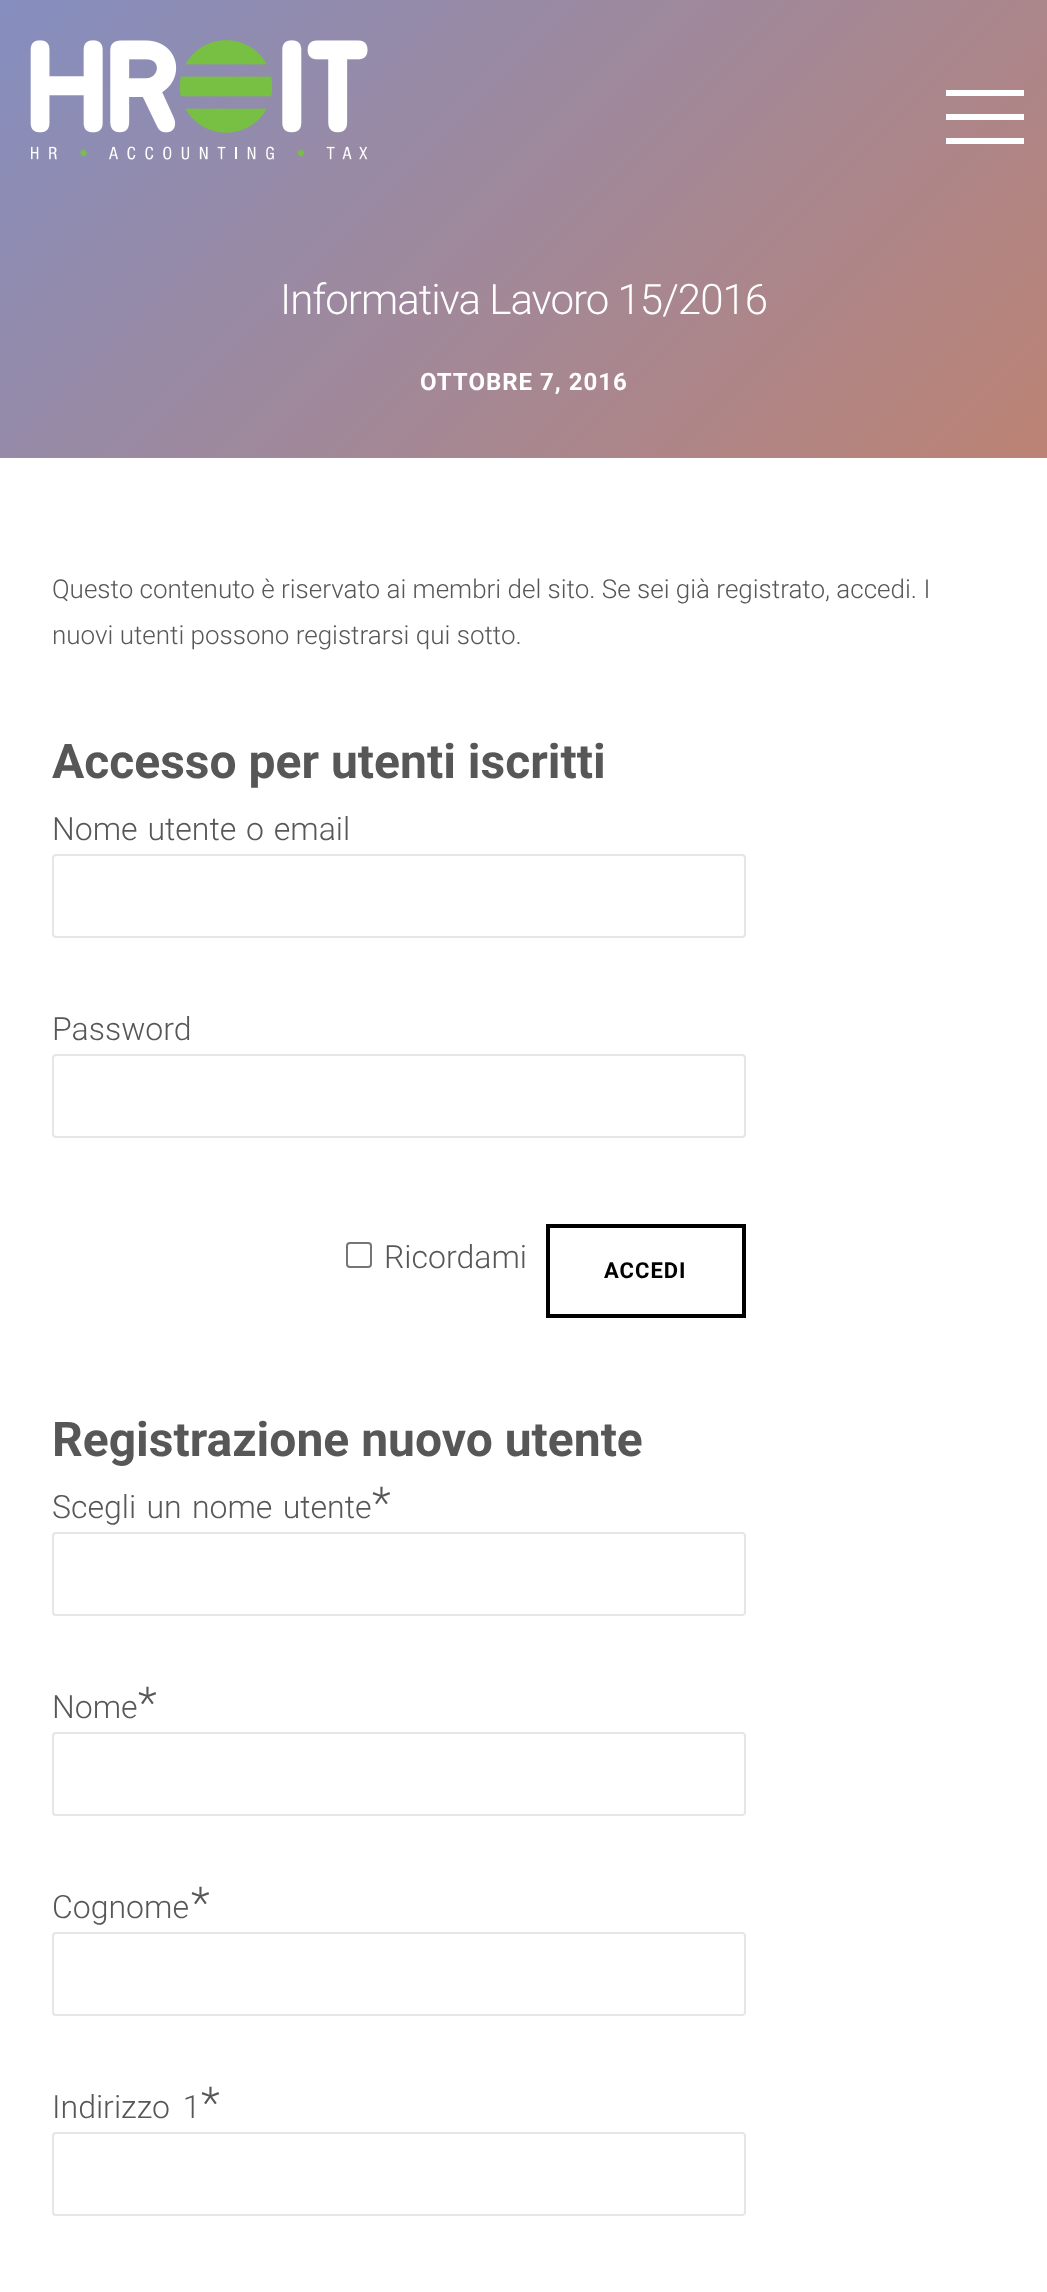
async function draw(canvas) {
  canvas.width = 1047
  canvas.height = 2292
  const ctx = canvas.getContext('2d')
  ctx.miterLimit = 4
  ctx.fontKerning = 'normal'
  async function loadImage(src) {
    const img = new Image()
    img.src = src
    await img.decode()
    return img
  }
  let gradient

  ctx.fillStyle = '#fff'
  ctx.fillRect(0, 0, 1047, 2292)
  gradient = ctx.createLinearGradient(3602, 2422, 590, -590)
  gradient.addColorStop(0, '#767d3b')
  gradient.addColorStop(0.33, '#3480a7')
  gradient.addColorStop(0.67, '#ce7f5c')
  gradient.addColorStop(1, '#858ebf')
  ctx.fillStyle = gradient
  ctx.fillRect(0, 0, 1047, 458)
  ctx.drawImage(await loadImage('image0.png'), 30, 40, 338, 120)
  ctx.fillStyle = '#fff'
  ctx.fillRect(946, 90, 78, 6)
  ctx.fillRect(946, 114, 78, 6)
  ctx.fillRect(946, 138, 78, 6)
  ctx.letterSpacing = '-1px'
  ctx.font = '300 42px Roboto'
  ctx.fillText('Informativa Lavoro 15/2016', 280, 314)
  ctx.letterSpacing = '1px'
  ctx.font = 'bold 24px Roboto'
  ctx.fillText('OTTOBRE 7, 2016', 420, 390)
  ctx.letterSpacing = '0px'
  ctx.font = '300 26px Roboto'
  ctx.fillStyle = '#575757'
  ctx.fillText('Questo contenuto è riservato ai membri del sito. Se sei già registrato, accedi. I', 52, 598)
  ctx.fillText('nuovi utenti possono registrarsi qui sotto.', 52, 644)
  ctx.font = 'bold 48px Roboto'
  ctx.fillText('Accesso per utenti iscritti', 52, 778)
  ctx.wordSpacing = '2px'
  ctx.font = '300 32px Roboto'
  ctx.fillText('Nome utente o email', 52, 840)
  ctx.beginPath()
  ctx.roundRect(53, 855, 692, 82, 3)
  ctx.strokeStyle = '#e6e6e6'
  ctx.lineWidth = 2
  ctx.stroke()
  ctx.wordSpacing = '0px'
  ctx.fillText('Password', 52, 1040)
  ctx.beginPath()
  ctx.roundRect(53, 1055, 692, 82, 3)
  ctx.stroke()
  ctx.beginPath()
  ctx.roundRect(347, 1243, 24, 24, 3)
  ctx.strokeStyle = '#767676'
  ctx.stroke()
  ctx.fillText('Ricordami', 384, 1268)
  ctx.strokeStyle = '#000'
  ctx.lineWidth = 4
  ctx.strokeRect(548, 1226, 196, 90)
  ctx.letterSpacing = '1px'
  ctx.font = 'bold 22px Roboto'
  ctx.fillStyle = '#000'
  ctx.fillText('ACCEDI', 604, 1278)
  ctx.letterSpacing = '0px'
  ctx.font = 'bold 48px Roboto'
  ctx.fillStyle = '#575757'
  ctx.fillText('Registrazione nuovo utente', 52, 1456)
  ctx.wordSpacing = '2.5px'
  ctx.font = '300 32px Roboto'
  ctx.fillText('Scegli un nome utente', 52, 1518)
  ctx.wordSpacing = '0px'
  ctx.font = '300 44px Roboto'
  ctx.fillText('*', 372, 1518)
  ctx.beginPath()
  ctx.roundRect(53, 1533, 692, 82, 3)
  ctx.strokeStyle = '#e6e6e6'
  ctx.lineWidth = 2
  ctx.stroke()
  ctx.font = '300 32px Roboto'
  ctx.fillText('Nome', 52, 1718)
  ctx.font = '300 44px Roboto'
  ctx.fillText('*', 138, 1718)
  ctx.beginPath()
  ctx.roundRect(53, 1733, 692, 82, 3)
  ctx.stroke()
  ctx.font = '300 32px Roboto'
  ctx.fillText('Cognome', 52, 1918)
  ctx.font = '300 44px Roboto'
  ctx.fillText('*', 191, 1918)
  ctx.beginPath()
  ctx.roundRect(53, 1933, 692, 82, 3)
  ctx.stroke()
  ctx.wordSpacing = '5px'
  ctx.font = '300 32px Roboto'
  ctx.fillText('Indirizzo 1', 52, 2118)
  ctx.wordSpacing = '0px'
  ctx.font = '300 44px Roboto'
  ctx.fillText('*', 201, 2118)
  ctx.beginPath()
  ctx.roundRect(53, 2133, 692, 82, 3)
  ctx.stroke()
}

draw(document.querySelector('canvas'))
